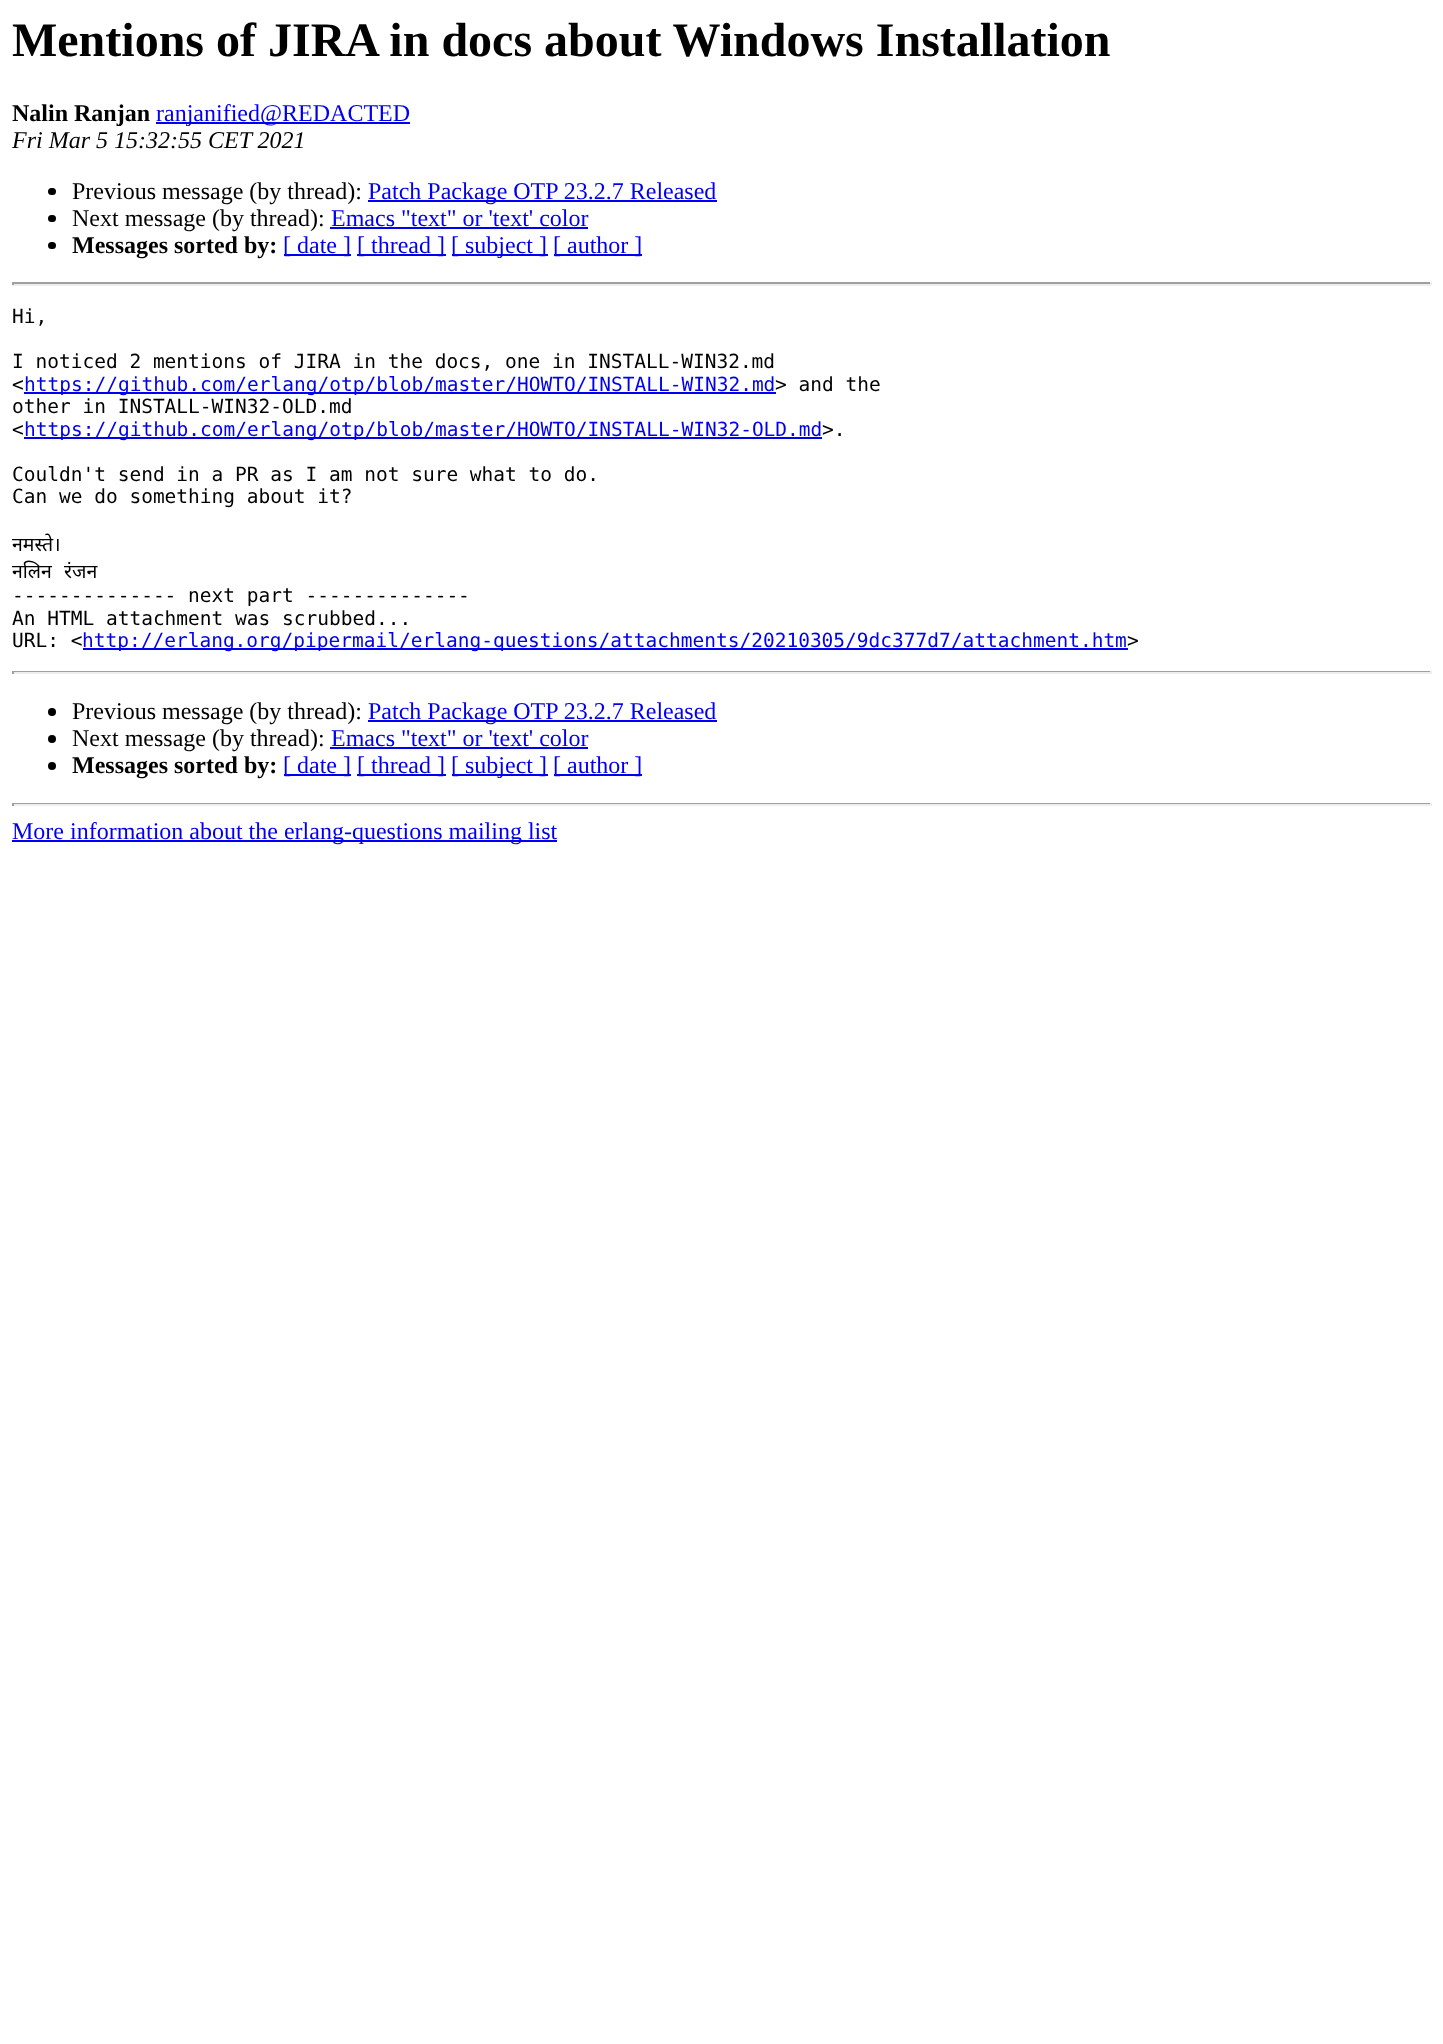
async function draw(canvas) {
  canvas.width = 1443
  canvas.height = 2044
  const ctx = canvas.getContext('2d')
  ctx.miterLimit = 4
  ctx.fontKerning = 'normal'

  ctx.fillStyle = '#fff'
  ctx.fillRect(0, 0, 1443, 2044)
  ctx.font = 'bold 48px Liberation Serif'
  ctx.fillStyle = '#000'
  ctx.fillText('Mentions of JIRA in docs about Windows Installation', 12, 56)
  ctx.font = 'bold 24px Liberation Serif'
  ctx.fillText('Nalin Ranjan', 12, 121)
  ctx.fillStyle = '#00e'
  ctx.fillRect(156, 122, 254, 2)
  ctx.font = '24px Liberation Serif'
  ctx.fillText('ranjanified@REDACTED', 156, 121)
  ctx.font = 'italic 24px Liberation Serif'
  ctx.fillStyle = '#000'
  ctx.fillText('Fri Mar 5 15:32:55 CET 2021', 12, 148)
  ctx.beginPath()
  ctx.roundRect(48, 188, 8, 7, 3.5)
  ctx.fill()
  ctx.font = '24px Liberation Serif'
  ctx.fillText('Previous message (by thread):', 72, 199)
  ctx.fillStyle = '#00e'
  ctx.fillRect(368, 200, 349, 2)
  ctx.fillText('Patch Package OTP 23.2.7 Released', 368, 199)
  ctx.fillStyle = '#000'
  ctx.beginPath()
  ctx.roundRect(48, 215, 8, 7, 3.5)
  ctx.fill()
  ctx.fillText('Next message (by thread):', 72, 226)
  ctx.fillStyle = '#00e'
  ctx.fillText('Emacs "text" or \'text\' color', 331, 226)
  ctx.fillRect(330, 227, 258, 2)
  ctx.fillStyle = '#000'
  ctx.beginPath()
  ctx.roundRect(48, 242, 8, 7, 3.5)
  ctx.fill()
  ctx.font = 'bold 24px Liberation Serif'
  ctx.fillText('Messages sorted by:', 72, 253)
  ctx.fillStyle = '#00e'
  ctx.fillRect(284, 254, 67, 2)
  ctx.font = '24px Liberation Serif'
  ctx.fillText('[ date ]', 283, 253)
  ctx.fillRect(357, 254, 89, 2)
  ctx.fillText('[ thread ]', 357, 253)
  ctx.fillRect(452, 254, 96, 2)
  ctx.fillText('[ subject ]', 451, 253)
  ctx.fillRect(554, 254, 88, 2)
  ctx.fillText('[ author ]', 553, 253)
  ctx.fillStyle = '#9f9f9f'
  ctx.fillRect(12, 282, 1419, 2)
  ctx.fillStyle = '#eee'
  ctx.fillRect(1430, 282, 2, 3)
  ctx.fillRect(12, 284, 1419, 2)
  ctx.fillStyle = '#9f9f9f'
  ctx.fillRect(12, 282, 2, 3)
  ctx.font = '19.5px DejaVu Sans Mono'
  ctx.fillStyle = '#000'
  ctx.fillText('Hi,', 12, 323)
  ctx.fillText('I noticed 2 mentions of JIRA in the docs, one in INSTALL-WIN32.md', 12, 368)
  ctx.fillText('<', 12, 391)
  ctx.fillStyle = '#00e'
  ctx.fillRect(24, 392, 752, 2)
  ctx.fillText('https://github.com/erlang/otp/blob/master/HOWTO/INSTALL-WIN32.md', 24, 391)
  ctx.fillStyle = '#000'
  ctx.fillText('> and the', 775, 391)
  ctx.fillText('other in INSTALL-WIN32-OLD.md', 12, 413)
  ctx.fillText('<', 12, 436)
  ctx.fillStyle = '#00e'
  ctx.fillRect(24, 437, 798, 2)
  ctx.fillText('https://github.com/erlang/otp/blob/master/HOWTO/INSTALL-WIN32-OLD.md', 24, 436)
  ctx.fillStyle = '#000'
  ctx.fillText('>.', 822, 436)
  ctx.fillText('Couldn\'t send in a PR as I am not sure what to do.', 12, 481)
  ctx.fillText('Can we do something about it?', 12, 503)
  ctx.font = '19.5px Noto Sans'
  ctx.fillText('नमस्ते।', 12, 551)
  ctx.wordSpacing = '7px'
  ctx.fillText('नलिन रंजन', 12, 578)
  ctx.wordSpacing = '0px'
  ctx.font = '19.5px DejaVu Sans Mono'
  ctx.fillText('-------------- next part --------------', 12, 602)
  ctx.fillText('An HTML attachment was scrubbed...', 12, 625)
  ctx.fillText('URL: <', 12, 647)
  ctx.fillStyle = '#00e'
  ctx.fillRect(83, 648, 1045, 2)
  ctx.fillText('http://erlang.org/pipermail/erlang-questions/attachments/20210305/9dc377d7/attachment.htm', 82, 647)
  ctx.fillStyle = '#000'
  ctx.fillText('>', 1127, 647)
  ctx.fillStyle = '#9f9f9f'
  ctx.fillRect(12, 671, 1419, 1)
  ctx.fillStyle = '#eee'
  ctx.fillRect(1430, 671, 2, 3)
  ctx.fillRect(12, 672, 1419, 2)
  ctx.fillStyle = '#9f9f9f'
  ctx.fillRect(12, 671, 2, 3)
  ctx.fillStyle = '#000'
  ctx.beginPath()
  ctx.arc(52, 712, 4, 0, 2 * Math.PI)
  ctx.fill()
  ctx.font = '24px Liberation Serif'
  ctx.fillText('Previous message (by thread):', 72, 719)
  ctx.fillStyle = '#00e'
  ctx.fillRect(368, 720, 349, 2)
  ctx.fillText('Patch Package OTP 23.2.7 Released', 368, 719)
  ctx.fillStyle = '#000'
  ctx.beginPath()
  ctx.arc(52, 739, 4, 0, 2 * Math.PI)
  ctx.fill()
  ctx.fillText('Next message (by thread):', 72, 746)
  ctx.fillStyle = '#00e'
  ctx.fillText('Emacs "text" or \'text\' color', 331, 746)
  ctx.fillRect(330, 747, 258, 2)
  ctx.fillStyle = '#000'
  ctx.beginPath()
  ctx.arc(52, 766, 4, 0, 2 * Math.PI)
  ctx.fill()
  ctx.font = 'bold 24px Liberation Serif'
  ctx.fillText('Messages sorted by:', 72, 773)
  ctx.fillStyle = '#00e'
  ctx.fillRect(284, 774, 67, 2)
  ctx.font = '24px Liberation Serif'
  ctx.fillText('[ date ]', 283, 773)
  ctx.fillRect(357, 774, 89, 2)
  ctx.fillText('[ thread ]', 357, 773)
  ctx.fillRect(452, 774, 96, 2)
  ctx.fillText('[ subject ]', 451, 773)
  ctx.fillRect(554, 774, 88, 2)
  ctx.fillText('[ author ]', 553, 773)
  ctx.fillStyle = '#9f9f9f'
  ctx.fillRect(12, 803, 1419, 1)
  ctx.fillStyle = '#eee'
  ctx.fillRect(1430, 803, 2, 3)
  ctx.fillRect(12, 804, 1419, 2)
  ctx.fillStyle = '#9f9f9f'
  ctx.fillRect(12, 803, 2, 3)
  ctx.fillStyle = '#00e'
  ctx.fillRect(12, 840, 545, 2)
  ctx.fillText('More information about the erlang-questions mailing list', 12, 839)
}

draw(document.querySelector('canvas'))
